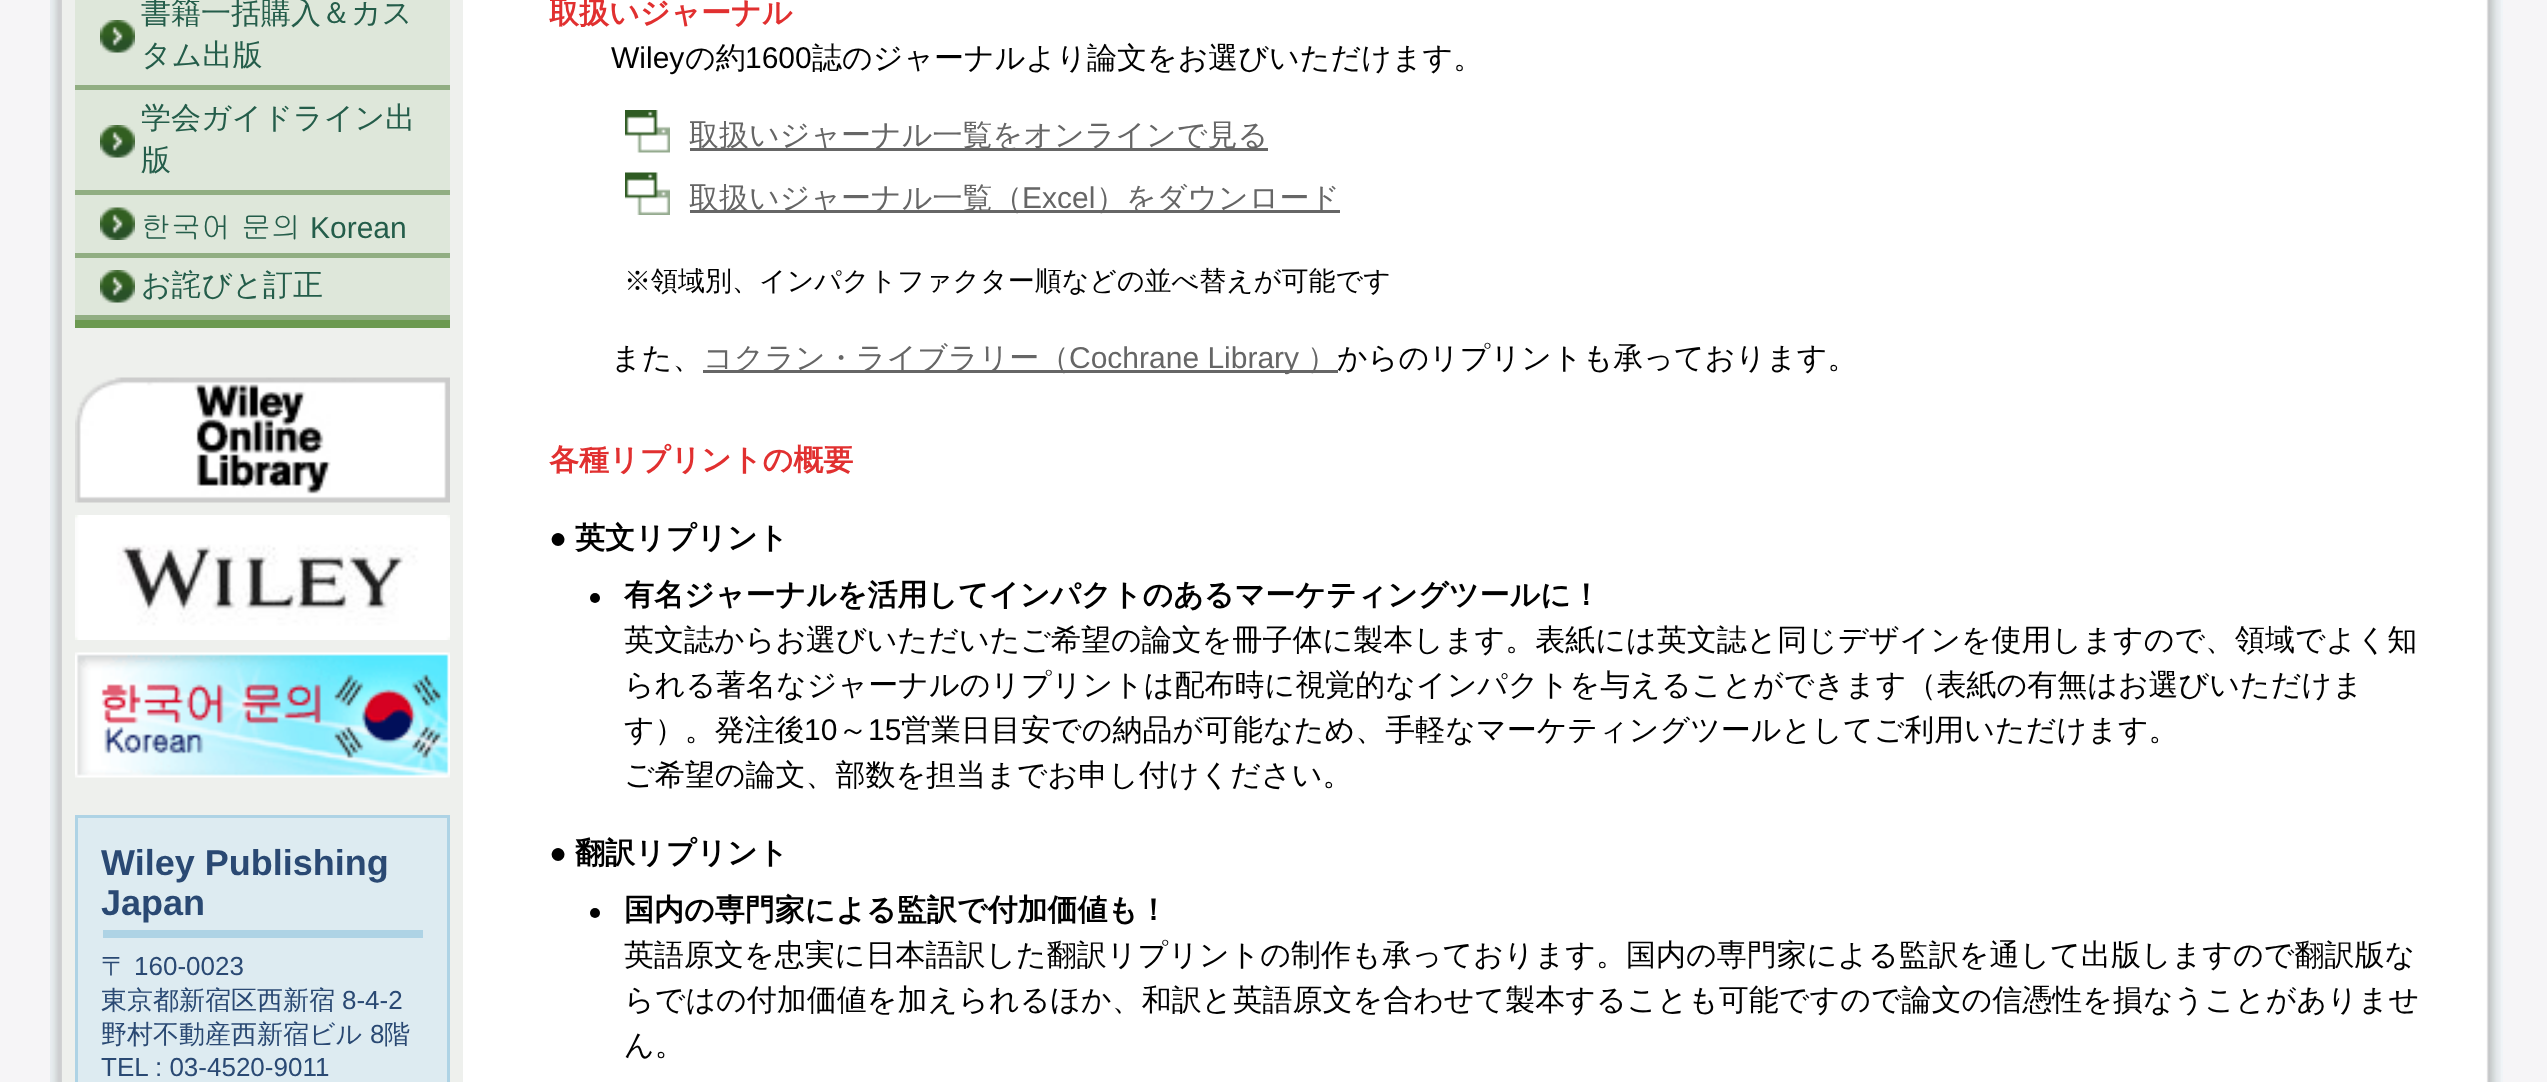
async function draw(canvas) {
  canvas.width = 2547
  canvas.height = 1082
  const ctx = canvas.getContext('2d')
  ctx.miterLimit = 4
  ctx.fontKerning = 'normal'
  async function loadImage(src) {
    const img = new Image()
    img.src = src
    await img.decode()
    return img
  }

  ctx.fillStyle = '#f6f5f7'
  ctx.fillRect(0, 0, 2547, 1082)
  ctx.fillStyle = '#f0f4f7'
  ctx.fillRect(2501, 0, 2, 1082)
  ctx.drawImage(await loadImage('image0.png'), 50, 0, 2451, 1082)
  ctx.fillStyle = '#eef0ed'
  ctx.fillRect(62, 0, 401, 1082)
  ctx.fillStyle = '#6b9950'
  ctx.fillRect(75, 320, 375, 8)
  ctx.fillStyle = '#dee7da'
  ctx.fillRect(75, 0, 375, 85)
  ctx.fillStyle = '#91ae82'
  ctx.fillRect(75, 85, 375, 5)
  ctx.drawImage(await loadImage('image1.png'), 100, 20, 35, 33)
  ctx.font = '500 30px WenQuanYi Zen Hei'
  ctx.fillStyle = '#245d4a'
  ctx.fillText('書籍一括購入＆カス', 141, 23)
  ctx.fillText('タム出版', 141, 65)
  ctx.fillStyle = '#dee7da'
  ctx.fillRect(75, 90, 375, 100)
  ctx.fillStyle = '#91ae82'
  ctx.fillRect(75, 190, 375, 5)
  ctx.drawImage(await loadImage('image1.png'), 100, 125, 35, 33)
  ctx.fillStyle = '#245d4a'
  ctx.fillText('学会ガイドライン出', 141, 128)
  ctx.fillText('版', 141, 170)
  ctx.fillStyle = '#dee7da'
  ctx.fillRect(75, 195, 375, 58)
  ctx.fillStyle = '#91ae82'
  ctx.fillRect(75, 253, 375, 5)
  ctx.drawImage(await loadImage('image2.png'), 100, 207, 35, 33)
  ctx.font = '30px Gulim'
  ctx.fillStyle = '#245d4a'
  ctx.fillText('한국어 문의', 141, 238)
  ctx.font = '30px Liberation Sans'
  ctx.fillText('Korean', 310, 238)
  ctx.fillStyle = '#dee7da'
  ctx.fillRect(75, 258, 375, 57)
  ctx.fillStyle = '#91ae82'
  ctx.fillRect(75, 315, 375, 5)
  ctx.drawImage(await loadImage('image1.png'), 100, 270, 35, 33)
  ctx.font = '500 30px WenQuanYi Zen Hei'
  ctx.fillStyle = '#245d4a'
  ctx.fillText('お詫びと訂正', 141, 295)
  ctx.drawImage(await loadImage('image3.png'), 75, 377, 375, 126)
  ctx.drawImage(await loadImage('image4.png'), 75, 515, 375, 125)
  ctx.drawImage(await loadImage('image5.png'), 75, 652, 375, 126)
  ctx.fillStyle = '#ddebf1'
  ctx.beginPath()
  ctx.rect(76.5, 816.5, 372, 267)
  ctx.fill()
  ctx.strokeStyle = '#aed3e5'
  ctx.lineWidth = 3
  ctx.stroke()
  ctx.fillStyle = '#aed3e5'
  ctx.fillRect(103, 930, 320, 8)
  ctx.font = 'bold 36px Liberation Sans'
  ctx.fillStyle = '#2a4973'
  ctx.fillText('Wiley Publishing', 101, 875)
  ctx.fillText('Japan', 101, 915)
  ctx.font = '500 26px WenQuanYi Zen Hei'
  ctx.fillText('〒', 101, 975)
  ctx.font = '26px Liberation Sans'
  ctx.fillText('160-0023', 134, 975)
  ctx.font = '500 26px WenQuanYi Zen Hei'
  ctx.fillText('東京都新宿区西新宿', 101, 1009)
  ctx.font = '26px Liberation Sans'
  ctx.fillText('8-4-2', 342, 1009)
  ctx.font = '500 26px WenQuanYi Zen Hei'
  ctx.fillText('野村不動産西新宿ビル', 101, 1043)
  ctx.font = '26px Liberation Sans'
  ctx.fillText('8', 370, 1043)
  ctx.font = '500 26px WenQuanYi Zen Hei'
  ctx.fillText('階', 384, 1043)
  ctx.font = '26px Liberation Sans'
  ctx.fillText('TEL : 03-4520-9011', 101, 1076)
  ctx.font = 'bold 30px WenQuanYi Zen Hei'
  ctx.fillStyle = '#e13030'
  ctx.fillText('取扱いジャーナル', 549, 23)
  ctx.font = '30px Liberation Sans'
  ctx.fillStyle = '#000'
  ctx.fillText('Wiley', 611, 68)
  ctx.font = '500 30px WenQuanYi Zen Hei'
  ctx.fillText('の約', 685, 68)
  ctx.font = '30px Liberation Sans'
  ctx.fillText('1600', 745, 68)
  ctx.font = '500 30px WenQuanYi Zen Hei'
  ctx.fillText('誌のジャーナルより論文をお選びいただけます。', 812, 68)
  ctx.drawImage(await loadImage('image6.png'), 625, 110, 45, 43)
  ctx.fillStyle = '#666'
  ctx.fillRect(690, 148, 578, 3)
  ctx.fillText('取扱いジャーナル一覧をオンラインで見る', 689, 145)
  ctx.drawImage(await loadImage('image7.png'), 625, 172, 45, 43)
  ctx.fillRect(690, 210, 650, 3)
  ctx.fillText('取扱いジャーナル一覧（', 689, 208)
  ctx.font = '30px Liberation Sans'
  ctx.fillText('Excel', 1022, 208)
  ctx.font = '500 30px WenQuanYi Zen Hei'
  ctx.fillText('）をダウンロード', 1096, 208)
  ctx.font = '500 27px WenQuanYi Zen Hei'
  ctx.fillStyle = '#000'
  ctx.fillText('※領域別、インパクトファクター順などの並べ替えが可能です', 624, 290)
  ctx.font = '500 30px WenQuanYi Zen Hei'
  ctx.fillText('また、', 611, 368)
  ctx.fillStyle = '#666'
  ctx.fillRect(703, 370, 635, 3)
  ctx.fillText('コクラン・ライブラリー（', 703, 368)
  ctx.font = '30px Liberation Sans'
  ctx.fillText('Cochrane Library', 1069, 368)
  ctx.font = '500 30px WenQuanYi Zen Hei'
  ctx.fillText('）', 1307, 368)
  ctx.fillStyle = '#000'
  ctx.fillText('からのリプリントも承っております。', 1337, 368)
  ctx.font = 'bold 30px WenQuanYi Zen Hei'
  ctx.fillStyle = '#e13030'
  ctx.fillText('各種リプリントの概要', 549, 470)
  ctx.font = 'bold 30px Liberation Sans'
  ctx.fillStyle = '#000'
  ctx.fillText('●', 549, 548)
  ctx.font = 'bold 30px WenQuanYi Zen Hei'
  ctx.fillText('英文リプリント', 575, 548)
  ctx.beginPath()
  ctx.arc(595, 598, 5, 0, 2 * Math.PI)
  ctx.fill()
  ctx.fillText('有名ジャーナルを活用してインパクトのあるマーケティングツールに！', 624, 605)
  ctx.font = '500 30px WenQuanYi Zen Hei'
  ctx.fillText('英文誌からお選びいただいたご希望の論文を冊子体に製本します。表紙には英文誌と同じデザインを使用しますので、領域でよく知', 624, 650)
  ctx.fillText('られる著名なジャーナルのリプリントは配布時に視覚的なインパクトを与えることができます（表紙の有無はお選びいただけま', 624, 695)
  ctx.fillText('す）。発注後', 624, 740)
  ctx.font = '30px Liberation Sans'
  ctx.fillText('10', 804, 740)
  ctx.font = '500 30px WenQuanYi Zen Hei'
  ctx.fillText('～', 838, 740)
  ctx.font = '30px Liberation Sans'
  ctx.fillText('15', 868, 740)
  ctx.font = '500 30px WenQuanYi Zen Hei'
  ctx.fillText('営業日目安での納品が可能なため、手軽なマーケティングツールとしてご利用いただけます。', 901, 740)
  ctx.fillText('ご希望の論文、部数を担当までお申し付けください。', 624, 785)
  ctx.font = 'bold 30px Liberation Sans'
  ctx.fillText('●', 549, 863)
  ctx.font = 'bold 30px WenQuanYi Zen Hei'
  ctx.fillText('翻訳リプリント', 575, 863)
  ctx.beginPath()
  ctx.arc(595, 913, 5, 0, 2 * Math.PI)
  ctx.fill()
  ctx.fillText('国内の専門家による監訳で付加価値も！', 624, 920)
  ctx.font = '500 30px WenQuanYi Zen Hei'
  ctx.fillText('英語原文を忠実に日本語訳した翻訳リプリントの制作も承っております。国内の専門家による監訳を通して出版しますので翻訳版な', 624, 965)
  ctx.fillText('らではの付加価値を加えられるほか、和訳と英語原文を合わせて製本することも可能ですので論文の信憑性を損なうことがありませ', 624, 1010)
  ctx.fillText('ん。', 624, 1055)
}

draw(document.querySelector('canvas'))
